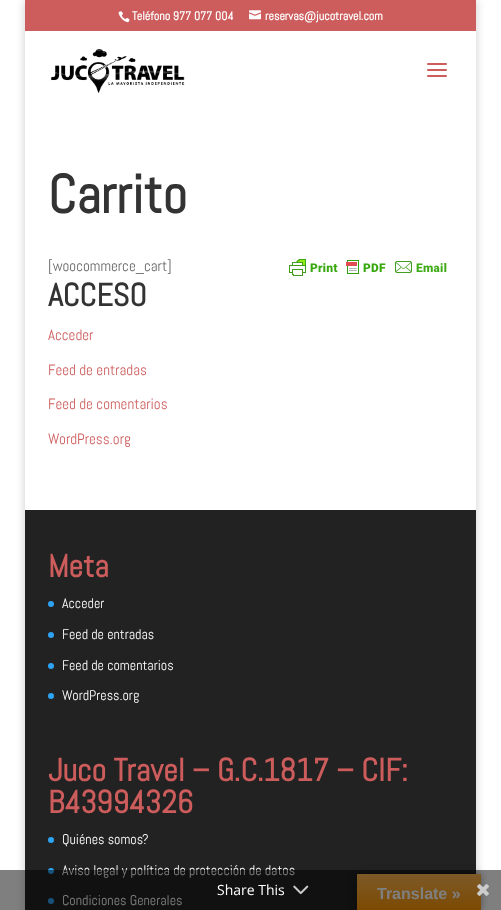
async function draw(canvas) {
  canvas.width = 501
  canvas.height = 910
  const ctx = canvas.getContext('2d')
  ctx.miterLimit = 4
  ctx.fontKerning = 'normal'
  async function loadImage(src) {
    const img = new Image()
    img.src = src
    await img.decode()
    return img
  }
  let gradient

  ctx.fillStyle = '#fff'
  ctx.fillRect(0, 0, 501, 910)
  ctx.save()
  ctx.beginPath()
  ctx.moveTo(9, 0)
  ctx.lineTo(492, 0)
  ctx.lineTo(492, 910)
  ctx.lineTo(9, 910)
  ctx.closePath()
  ctx.moveTo(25, 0)
  ctx.lineTo(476, 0)
  ctx.lineTo(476, 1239)
  ctx.lineTo(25, 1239)
  ctx.closePath()
  ctx.clip('evenodd')
  ctx.fillStyle = '#00000033'
  ctx.filter = 'blur(5px)'
  ctx.beginPath()
  ctx.rect(25, 0, 451, 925)
  ctx.fill()
  ctx.filter = 'none'
  ctx.restore()
  ctx.fillStyle = '#cd5c5c'
  ctx.fillRect(25, 0, 451, 31)
  ctx.drawImage(await loadImage('image0.png'), 118, 11, 12, 12)
  ctx.font = 'bold 12px Abel'
  ctx.fillStyle = '#fff'
  ctx.fillText('Teléfono 977 077 004', 132, 20)
  ctx.drawImage(await loadImage('image1.png'), 249, 10, 12, 10)
  ctx.fillText('reservas@jucotravel.com', 265, 20)
  ctx.drawImage(await loadImage('image2.png'), 51, 49, 134, 44)
  ctx.drawImage(await loadImage('image3.png'), 427, 63, 20, 14)
  ctx.font = 'bold 54px Abel'
  ctx.fillStyle = '#333'
  ctx.fillText('Carrito', 48, 213)
  ctx.font = '15px Abel'
  ctx.fillStyle = '#666'
  ctx.fillText('[woocommerce_cart]', 48, 271)
  ctx.drawImage(await loadImage('image4.png'), 289, 259, 158, 17)
  ctx.font = 'bold 32px Abel'
  ctx.fillStyle = '#333'
  ctx.fillText('ACCESO', 48, 306)
  ctx.font = '15px Abel'
  ctx.fillStyle = '#cd5c5c'
  ctx.fillText('Acceder', 48, 340)
  ctx.fillText('Feed de entradas', 48, 375)
  ctx.fillText('Feed de comentarios', 48, 409)
  ctx.fillText('WordPress.org', 48, 444)
  ctx.fillStyle = '#222'
  ctx.fillRect(25, 510, 451, 400)
  ctx.font = 'bold 32px Abel'
  ctx.fillStyle = '#cd5c5c'
  ctx.fillText('Meta', 48, 577)
  ctx.fillStyle = '#2ea3f2'
  ctx.beginPath()
  ctx.arc(51, 604, 3, 0, 2 * Math.PI)
  ctx.fill()
  ctx.font = '14px Abel'
  ctx.fillStyle = '#fff'
  ctx.fillText('Acceder', 62, 608)
  ctx.fillStyle = '#2ea3f2'
  ctx.beginPath()
  ctx.arc(51, 635, 3, 0, 2 * Math.PI)
  ctx.fill()
  ctx.fillStyle = '#fff'
  ctx.fillText('Feed de entradas', 62, 639)
  ctx.fillStyle = '#2ea3f2'
  ctx.beginPath()
  ctx.arc(51, 666, 3, 0, 2 * Math.PI)
  ctx.fill()
  ctx.fillStyle = '#fff'
  ctx.fillText('Feed de comentarios', 62, 670)
  ctx.fillStyle = '#2ea3f2'
  ctx.beginPath()
  ctx.arc(51, 696, 3, 0, 2 * Math.PI)
  ctx.fill()
  ctx.fillStyle = '#fff'
  ctx.fillText('WordPress.org', 62, 700)
  ctx.font = 'bold 32px Abel'
  ctx.fillStyle = '#cd5c5c'
  ctx.fillText('Juco Travel – G.C.1817 – CIF:', 48, 781)
  ctx.fillText('B43994326', 48, 813)
  ctx.fillStyle = '#2ea3f2'
  ctx.beginPath()
  ctx.arc(51, 840, 3, 0, 2 * Math.PI)
  ctx.fill()
  ctx.font = '14px Abel'
  ctx.fillStyle = '#fff'
  ctx.fillText('Quiénes somos?', 62, 844)
  ctx.fillStyle = '#2ea3f2'
  ctx.beginPath()
  ctx.arc(51, 871, 3, 0, 2 * Math.PI)
  ctx.fill()
  ctx.fillStyle = '#fff'
  ctx.fillText('Aviso legal y política de protección de datos', 62, 875)
  ctx.fillStyle = '#2ea3f2'
  ctx.beginPath()
  ctx.arc(51, 901, 3, 0, 2 * Math.PI)
  ctx.fill()
  ctx.fillStyle = '#fff'
  ctx.fillText('Condiciones Generales', 62, 905)
  ctx.fillStyle = '#0000004d'
  ctx.filter = 'blur(4.5px)'
  ctx.beginPath()
  ctx.rect(357, 874, 124, 36)
  ctx.fill()
  ctx.filter = 'none'
  gradient = ctx.createLinearGradient(419, 874, 419, 910)
  gradient.addColorStop(0, '#fbb450')
  gradient.addColorStop(1, '#f89406')
  ctx.fillStyle = gradient
  ctx.fillRect(357, 874, 124, 36)
  ctx.font = 'bold 16px Liberation Sans'
  ctx.fillStyle = '#fff'
  ctx.fillText('Translate »', 377, 899)
  ctx.fillStyle = '#00000080'
  ctx.fillRect(0, 870, 501, 40)
  ctx.font = '14px Open Sans'
  ctx.fillStyle = '#fff'
  ctx.fillText('Share This', 217, 895)
  ctx.drawImage(await loadImage('image5.png'), 293, 885, 16, 10)
  ctx.drawImage(await loadImage('image6.png'), 477, 884, 12, 12)
}

draw(document.querySelector('canvas'))
